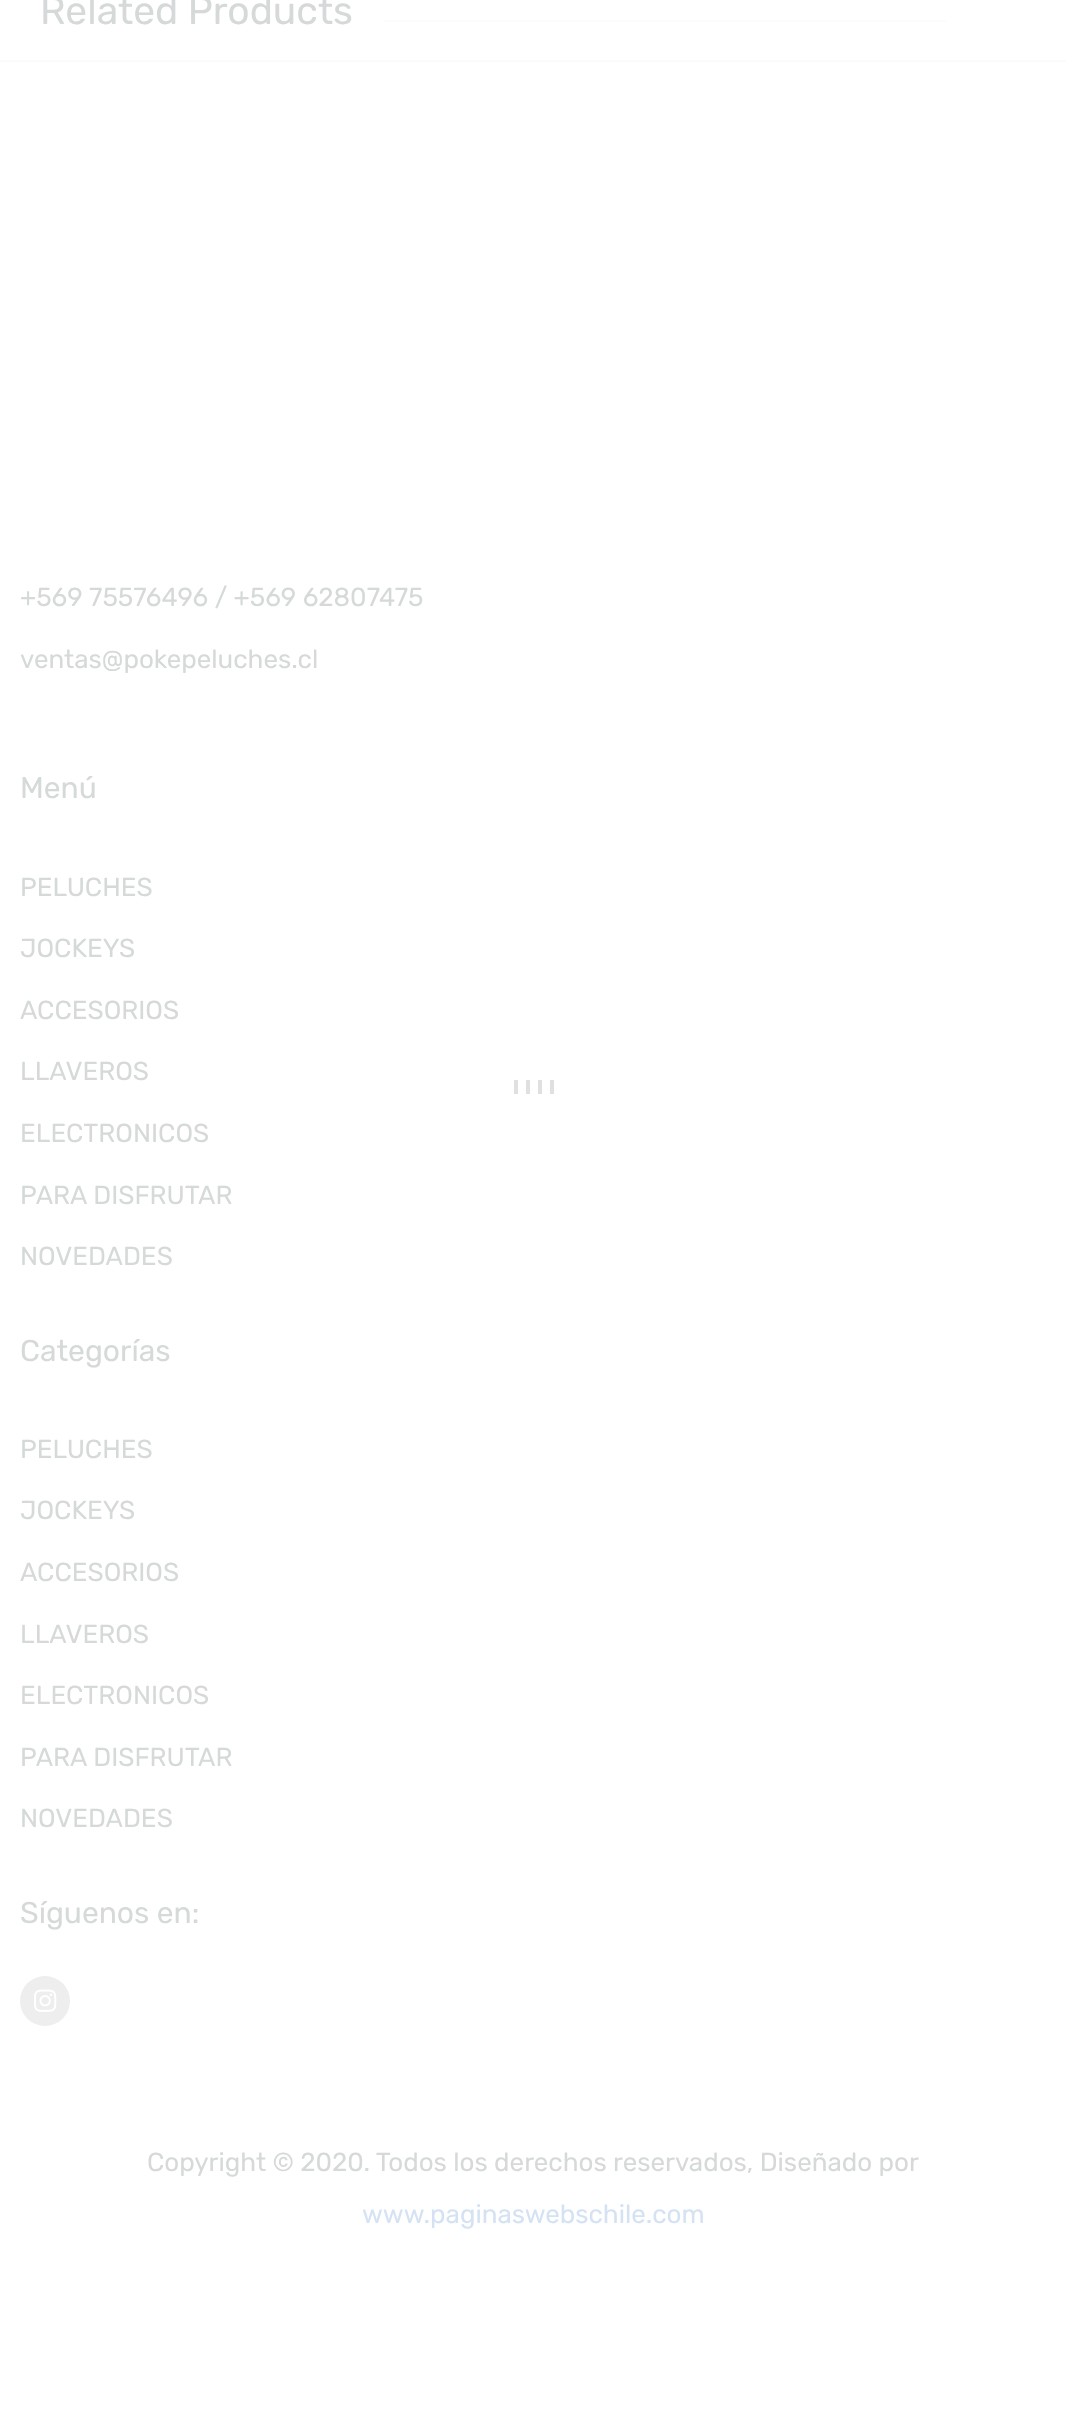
async function draw(canvas) {
  canvas.width = 1066
  canvas.height = 2412
  const ctx = canvas.getContext('2d')
  ctx.miterLimit = 4
  ctx.fontKerning = 'normal'
  async function loadImage(src) {
    const img = new Image()
    img.src = src
    await img.decode()
    return img
  }

  ctx.fillStyle = '#fff'
  ctx.fillRect(0, 0, 1066, 2412)
  ctx.font = '39px Rubik'
  ctx.fillStyle = '#d6d9d9'
  ctx.fillText('Related Products', 40, 24)
  ctx.fillStyle = '#fcfcfc'
  ctx.fillRect(384, 20, 562, 2)
  ctx.fillStyle = '#fbfbfb'
  ctx.fillRect(0, 60, 1066, 2)
  ctx.font = '26px Rubik'
  ctx.fillStyle = '#d6d9d9'
  ctx.fillText('+569 75576496 / +569 62807475', 20, 606)
  ctx.fillText('ventas@pokepeluches.cl', 20, 668)
  ctx.font = '30px Rubik'
  ctx.fillText('Menú', 20, 798)
  ctx.font = '26px Rubik'
  ctx.fillText('PELUCHES', 20, 896)
  ctx.fillText('JOCKEYS', 20, 957)
  ctx.fillText('ACCESORIOS', 20, 1019)
  ctx.fillText('LLAVEROS', 20, 1080)
  ctx.fillText('ELECTRONICOS', 20, 1142)
  ctx.fillText('PARA DISFRUTAR', 20, 1204)
  ctx.fillText('NOVEDADES', 20, 1265)
  ctx.font = '30px Rubik'
  ctx.fillText('Categorías', 20, 1361)
  ctx.font = '26px Rubik'
  ctx.fillText('PELUCHES', 20, 1458)
  ctx.fillText('JOCKEYS', 20, 1519)
  ctx.fillText('ACCESORIOS', 20, 1581)
  ctx.fillText('LLAVEROS', 20, 1643)
  ctx.fillText('ELECTRONICOS', 20, 1704)
  ctx.fillText('PARA DISFRUTAR', 20, 1766)
  ctx.fillText('NOVEDADES', 20, 1827)
  ctx.font = '30px Rubik'
  ctx.fillText('Síguenos en:', 20, 1923)
  ctx.fillStyle = '#eee'
  ctx.beginPath()
  ctx.arc(45, 2001, 25, 0, 2 * Math.PI)
  ctx.fill()
  ctx.drawImage(await loadImage('image0.png'), 34, 1989, 23, 23)
  ctx.font = '26px Rubik'
  ctx.fillStyle = '#d6d9d9'
  ctx.fillText('Copyright © 2020. Todos los derechos reservados, Diseñado por', 147, 2171)
  ctx.fillStyle = '#d4e2f3'
  ctx.fillText('www.paginaswebschile.com', 362, 2223)
  ctx.fillStyle = '#e0e0e0'
  ctx.fillRect(514, 1080, 4, 14)
  ctx.fillRect(526, 1080, 4, 14)
  ctx.fillRect(538, 1080, 4, 14)
  ctx.fillRect(550, 1080, 4, 14)
}

draw(document.querySelector('canvas'))
